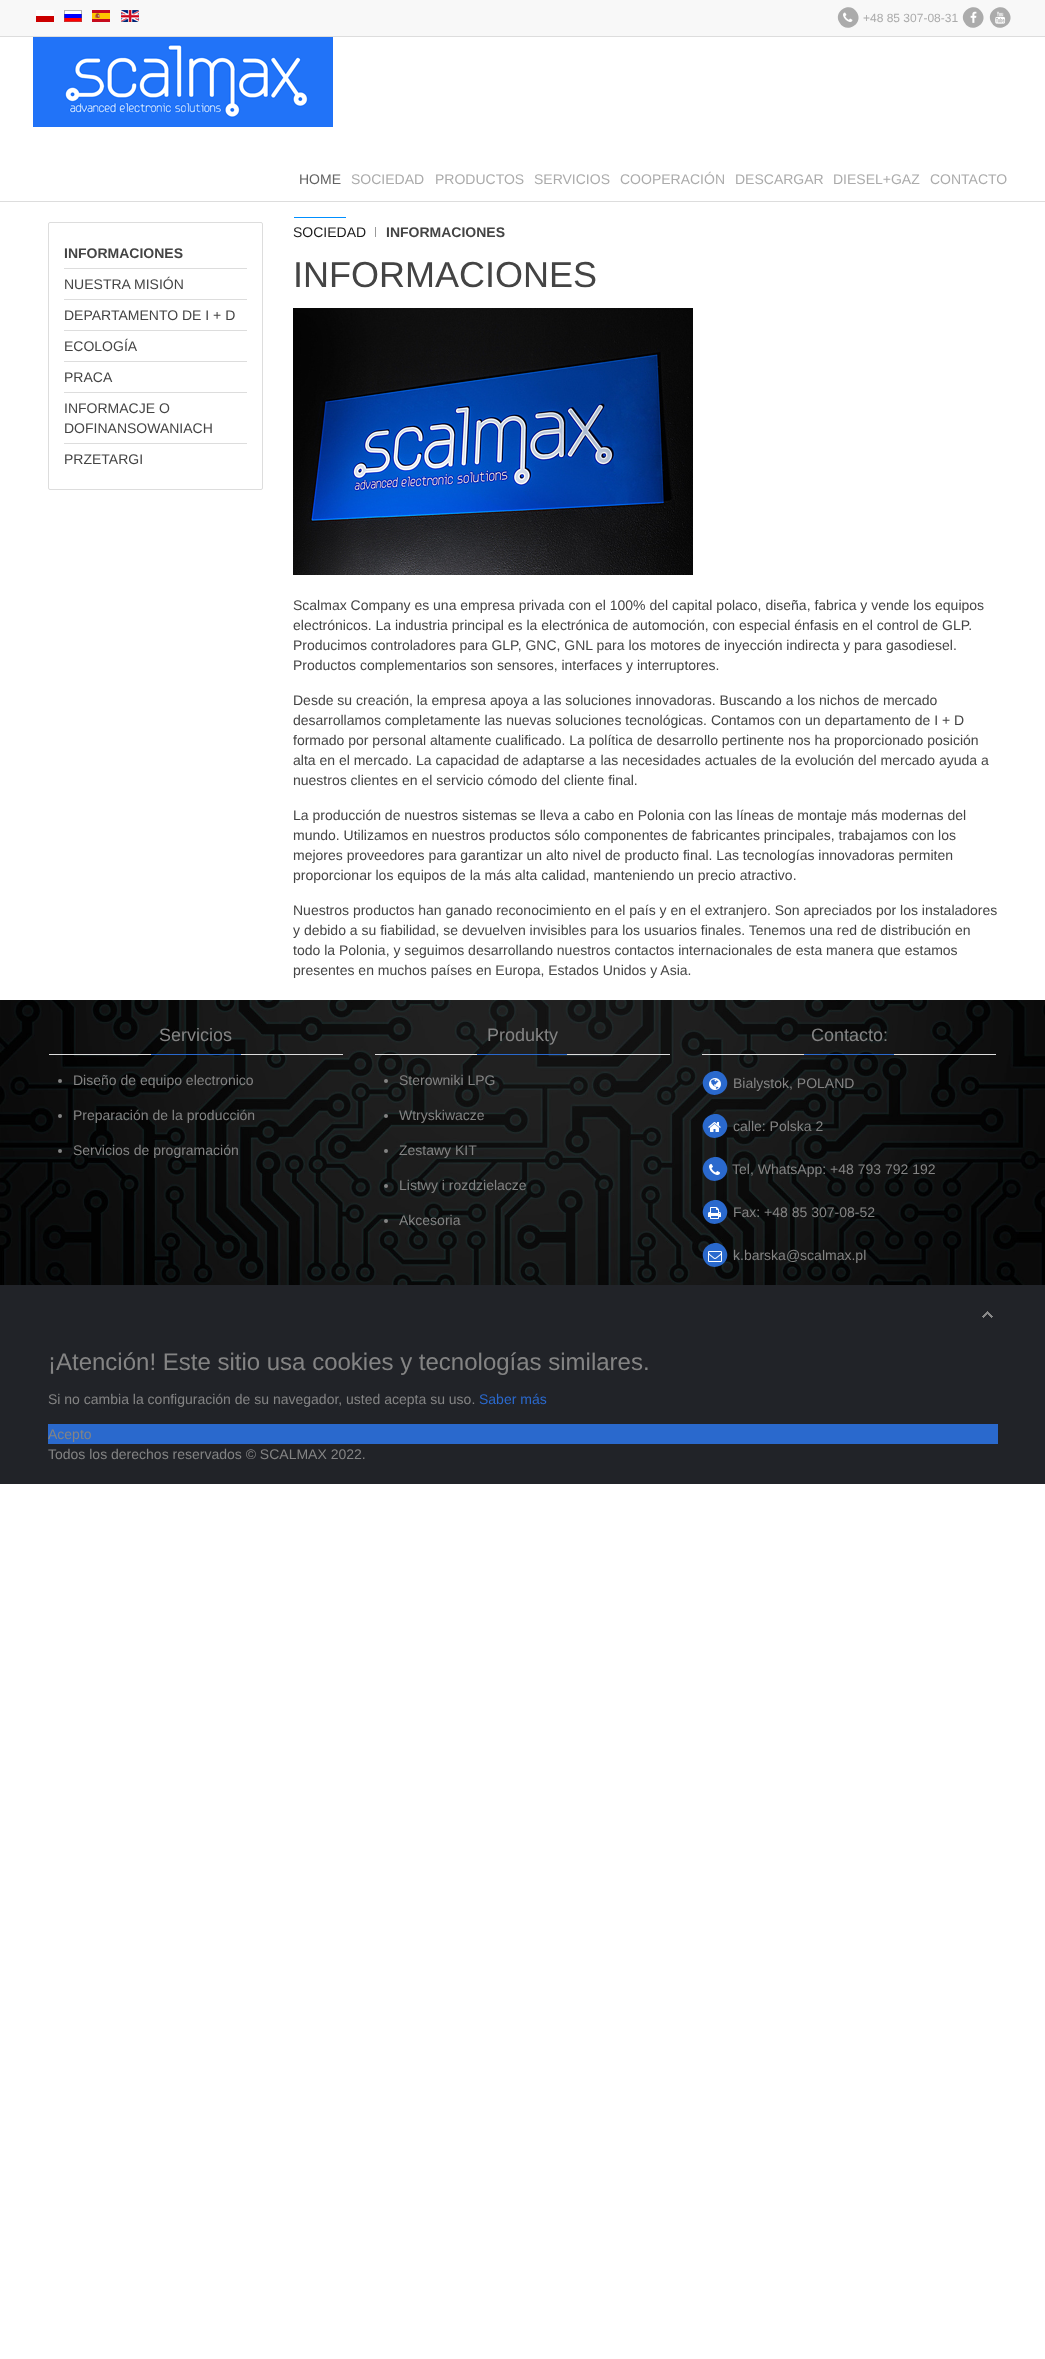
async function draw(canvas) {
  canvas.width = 1045
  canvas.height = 2359
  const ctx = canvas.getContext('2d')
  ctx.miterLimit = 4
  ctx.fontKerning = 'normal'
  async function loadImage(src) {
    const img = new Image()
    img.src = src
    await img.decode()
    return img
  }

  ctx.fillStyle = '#fff'
  ctx.fillRect(0, 0, 1045, 2359)
  ctx.fillStyle = '#f8f8f8'
  ctx.fillRect(0, 0, 1045, 36)
  ctx.fillStyle = '#ddd'
  ctx.fillRect(0, 36, 1045, 1)
  ctx.drawImage(await loadImage('image0.png'), 36, 10, 18, 12)
  ctx.drawImage(await loadImage('image1.png'), 64, 10, 18, 12)
  ctx.drawImage(await loadImage('image2.png'), 92, 10, 18, 12)
  ctx.drawImage(await loadImage('image3.png'), 121, 10, 18, 12)
  ctx.fillStyle = '#ababab'
  ctx.beginPath()
  ctx.moveTo(857, 12.5)
  ctx.bezierCurveTo(864, 24, 846, 34.5, 839.5, 22.5)
  ctx.bezierCurveTo(832.5, 11, 850.5, 0.5, 857, 12.5)
  ctx.closePath()
  ctx.fill()
  ctx.drawImage(await loadImage('image4.png'), 843, 12, 10, 10)
  ctx.font = '12px Liberation Sans'
  ctx.fillText('+48 85 307-08-31', 863, 22)
  ctx.beginPath()
  ctx.moveTo(982, 12.5)
  ctx.bezierCurveTo(989, 24, 971, 34.5, 964.5, 22.5)
  ctx.bezierCurveTo(957.5, 11, 975.5, 0.5, 982, 12.5)
  ctx.closePath()
  ctx.fill()
  ctx.drawImage(await loadImage('image5.png'), 970, 11, 7, 12)
  ctx.beginPath()
  ctx.moveTo(1009, 12.5)
  ctx.bezierCurveTo(1016, 24, 998, 34.5, 991.5, 22.5)
  ctx.bezierCurveTo(984.5, 11, 1002.5, 0.5, 1009, 12.5)
  ctx.closePath()
  ctx.fill()
  ctx.drawImage(await loadImage('image6.png'), 995, 11, 11, 13)
  ctx.fillStyle = '#ddd'
  ctx.fillRect(0, 201, 1045, 1)
  ctx.drawImage(await loadImage('image7.png'), 33, 37, 300, 90)
  ctx.fillStyle = '#008fff'
  ctx.fillRect(294, 217, 52, 1)
  ctx.font = '14px Liberation Sans'
  ctx.fillStyle = '#626262'
  ctx.fillText('HOME', 299, 184)
  ctx.fillStyle = '#ababab'
  ctx.fillText('SOCIEDAD', 351, 184)
  ctx.fillText('PRODUCTOS', 435, 184)
  ctx.fillText('SERVICIOS', 534, 184)
  ctx.fillText('COOPERACIÓN', 620, 184)
  ctx.fillText('DESCARGAR', 735, 184)
  ctx.fillText('DIESEL+GAZ', 833, 184)
  ctx.fillText('CONTACTO', 930, 184)
  ctx.beginPath()
  ctx.roundRect(48.5, 222.5, 214, 267, 1.5)
  ctx.strokeStyle = '#ddd'
  ctx.stroke()
  ctx.font = 'bold 14px Liberation Sans'
  ctx.fillStyle = '#444'
  ctx.fillText('INFORMACIONES', 64, 258)
  ctx.fillStyle = '#ddd'
  ctx.fillRect(64, 268, 183, 1)
  ctx.font = '14px Liberation Sans'
  ctx.fillStyle = '#444'
  ctx.fillText('NUESTRA MISIÓN', 64, 289)
  ctx.fillStyle = '#ddd'
  ctx.fillRect(64, 299, 183, 1)
  ctx.fillStyle = '#444'
  ctx.fillText('DEPARTAMENTO DE I + D', 64, 320)
  ctx.fillStyle = '#ddd'
  ctx.fillRect(64, 330, 183, 1)
  ctx.fillStyle = '#444'
  ctx.fillText('ECOLOGÍA', 64, 351)
  ctx.fillStyle = '#ddd'
  ctx.fillRect(64, 361, 183, 1)
  ctx.fillStyle = '#444'
  ctx.fillText('PRACA', 64, 382)
  ctx.fillStyle = '#ddd'
  ctx.fillRect(64, 392, 183, 1)
  ctx.fillStyle = '#444'
  ctx.fillText('INFORMACJE O', 64, 413)
  ctx.fillText('DOFINANSOWANIACH', 64, 433)
  ctx.fillStyle = '#ddd'
  ctx.fillRect(64, 443, 183, 1)
  ctx.fillStyle = '#444'
  ctx.fillText('PRZETARGI', 64, 464)
  ctx.fillStyle = '#999'
  ctx.fillRect(375, 227, 1, 10)
  ctx.fillStyle = '#1b1b1b'
  ctx.fillText('SOCIEDAD', 293, 237)
  ctx.font = 'bold 14px Liberation Sans'
  ctx.fillStyle = '#444'
  ctx.fillText('INFORMACIONES', 386, 237)
  ctx.font = '36px Liberation Sans'
  ctx.fillText('INFORMACIONES', 293, 287)
  ctx.drawImage(await loadImage('image8.png'), 293, 308, 400, 267)
  ctx.font = '14px Liberation Sans'
  ctx.fillText('Scalmax Company es una empresa privada con el 100% del capital polaco, diseña, fabrica y vende los equipos', 293, 610)
  ctx.fillText('electrónicos. La industria principal es la electrónica de automoción, con especial énfasis en el control de GLP.', 293, 630)
  ctx.fillText('Producimos controladores para GLP, GNC, GNL para los motores de inyección indirecta y para gasodiesel.', 293, 650)
  ctx.fillText('Productos complementarios son sensores, interfaces y interruptores.', 293, 670)
  ctx.fillText('Desde su creación, la empresa apoya a las soluciones innovadoras. Buscando a los nichos de mercado', 293, 705)
  ctx.fillText('desarrollamos completamente las nuevas soluciones tecnológicas. Contamos con un departamento de I + D', 293, 725)
  ctx.fillText('formado por personal altamente cualificado. La política de desarrollo pertinente nos ha proporcionado posición', 293, 745)
  ctx.fillText('alta en el mercado. La capacidad de adaptarse a las necesidades actuales de la evolución del mercado ayuda a', 293, 765)
  ctx.fillText('nuestros clientes en el servicio cómodo del cliente final.', 293, 785)
  ctx.fillText('La producción de nuestros sistemas se lleva a cabo en Polonia con las líneas de montaje más modernas del', 293, 820)
  ctx.fillText('mundo. Utilizamos en nuestros productos sólo componentes de fabricantes principales, trabajamos con los', 293, 840)
  ctx.fillText('mejores proveedores para garantizar un alto nivel de producto final. Las tecnologías innovadoras permiten', 293, 860)
  ctx.fillText('proporcionar los equipos de la más alta calidad, manteniendo un precio atractivo.', 293, 880)
  ctx.fillText('Nuestros productos han ganado reconocimiento en el país y en el extranjero. Son apreciados por los instaladores', 293, 915)
  ctx.fillText('y debido a su fiabilidad, se devuelven invisibles para los usuarios finales. Tenemos una red de distribución en', 293, 935)
  ctx.fillText('todo la Polonia, y seguimos desarrollando nuestros contactos internacionales de esta manera que estamos', 293, 955)
  ctx.fillText('presentes en muchos países en Europa, Estados Unidos y Asia.', 293, 975)
  ctx.drawImage(await loadImage('image9.png'), 0, 1000, 1045, 285)
  ctx.fillStyle = '#ddd'
  ctx.fillRect(49, 1054, 294, 1)
  ctx.font = '18px Liberation Sans'
  ctx.fillStyle = '#848484'
  ctx.fillText('Servicios', 159, 1041)
  ctx.fillStyle = '#2a69cd'
  ctx.fillRect(151, 1054, 90, 1)
  ctx.fillStyle = '#848484'
  ctx.beginPath()
  ctx.arc(60, 1081, 2, 0, 2 * Math.PI)
  ctx.fill()
  ctx.font = '14px Liberation Sans'
  ctx.fillText('Diseño de equipo electronico', 73, 1085)
  ctx.beginPath()
  ctx.arc(60, 1116, 2, 0, 2 * Math.PI)
  ctx.fill()
  ctx.fillText('Preparación de la producción', 73, 1120)
  ctx.beginPath()
  ctx.arc(60, 1151, 2, 0, 2 * Math.PI)
  ctx.fill()
  ctx.fillText('Servicios de programación', 73, 1155)
  ctx.fillStyle = '#ddd'
  ctx.fillRect(375, 1054, 295, 1)
  ctx.font = '18px Liberation Sans'
  ctx.fillStyle = '#848484'
  ctx.fillText('Produkty', 487, 1041)
  ctx.fillStyle = '#2a69cd'
  ctx.fillRect(477, 1054, 90, 1)
  ctx.fillStyle = '#848484'
  ctx.beginPath()
  ctx.arc(386, 1081, 2, 0, 2 * Math.PI)
  ctx.fill()
  ctx.font = '14px Liberation Sans'
  ctx.fillText('Sterowniki LPG', 399, 1085)
  ctx.beginPath()
  ctx.arc(386, 1116, 2, 0, 2 * Math.PI)
  ctx.fill()
  ctx.fillText('Wtryskiwacze', 399, 1120)
  ctx.beginPath()
  ctx.arc(386, 1151, 2, 0, 2 * Math.PI)
  ctx.fill()
  ctx.fillText('Zestawy KIT', 399, 1155)
  ctx.beginPath()
  ctx.arc(386, 1186, 2, 0, 2 * Math.PI)
  ctx.fill()
  ctx.fillText('Listwy i rozdzielacze', 399, 1190)
  ctx.beginPath()
  ctx.arc(386, 1221, 2, 0, 2 * Math.PI)
  ctx.fill()
  ctx.fillText('Akcesoria', 399, 1225)
  ctx.fillStyle = '#ddd'
  ctx.fillRect(702, 1054, 294, 1)
  ctx.font = '18px Liberation Sans'
  ctx.fillStyle = '#848484'
  ctx.fillText('Contacto:', 811, 1041)
  ctx.fillStyle = '#2a69cd'
  ctx.fillRect(804, 1054, 90, 1)
  ctx.beginPath()
  ctx.moveTo(725.5, 1077)
  ctx.bezierCurveTo(733.5, 1090.5, 712.5, 1102.5, 704.5, 1089)
  ctx.bezierCurveTo(696.5, 1075.5, 717.5, 1063.5, 725.5, 1077)
  ctx.closePath()
  ctx.fill()
  ctx.drawImage(await loadImage('image10.png'), 709, 1078, 12, 12)
  ctx.font = '14px Liberation Sans'
  ctx.fillStyle = '#848484'
  ctx.fillText('Bialystok, POLAND', 733, 1088)
  ctx.fillStyle = '#2a69cd'
  ctx.beginPath()
  ctx.moveTo(725.5, 1120)
  ctx.bezierCurveTo(733.5, 1133.5, 712.5, 1145.5, 704.5, 1132)
  ctx.bezierCurveTo(696.5, 1118.5, 717.5, 1106.5, 725.5, 1120)
  ctx.closePath()
  ctx.fill()
  ctx.drawImage(await loadImage('image11.png'), 708, 1122, 13, 10)
  ctx.fillStyle = '#848484'
  ctx.fillText('calle: Polska 2', 733, 1131)
  ctx.fillStyle = '#2a69cd'
  ctx.beginPath()
  ctx.moveTo(725.5, 1163)
  ctx.bezierCurveTo(733.5, 1176.5, 712.5, 1188.5, 704.5, 1175)
  ctx.bezierCurveTo(696.5, 1161.5, 717.5, 1149.5, 725.5, 1163)
  ctx.closePath()
  ctx.fill()
  ctx.drawImage(await loadImage('image12.png'), 709, 1164, 11, 11)
  ctx.fillStyle = '#848484'
  ctx.fillText('Tel, WhatsApp: +48 793 792 192', 732, 1174)
  ctx.fillStyle = '#2a69cd'
  ctx.beginPath()
  ctx.moveTo(725.5, 1206)
  ctx.bezierCurveTo(733.5, 1219.5, 712.5, 1231.5, 704.5, 1218)
  ctx.bezierCurveTo(696.5, 1204.5, 717.5, 1192.5, 725.5, 1206)
  ctx.closePath()
  ctx.fill()
  ctx.drawImage(await loadImage('image13.png'), 708, 1207, 13, 12)
  ctx.fillStyle = '#848484'
  ctx.fillText('Fax: +48 85 307-08-52', 733, 1217)
  ctx.fillStyle = '#2a69cd'
  ctx.beginPath()
  ctx.moveTo(725.5, 1249)
  ctx.bezierCurveTo(733.5, 1262.5, 712.5, 1274.5, 704.5, 1261)
  ctx.bezierCurveTo(696.5, 1247.5, 717.5, 1235.5, 725.5, 1249)
  ctx.closePath()
  ctx.fill()
  ctx.drawImage(await loadImage('image14.png'), 708, 1251, 14, 11)
  ctx.fillStyle = '#848484'
  ctx.fillText('k.barska@scalmax.pl', 733, 1260)
  ctx.fillStyle = '#212328'
  ctx.fillRect(0, 1285, 1045, 199)
  ctx.drawImage(await loadImage('image15.png'), 982, 1311, 11, 7)
  ctx.font = '24px Liberation Sans'
  ctx.fillStyle = '#848484'
  ctx.fillText('¡Atención! Este sitio usa cookies y tecnologías similares.', 48, 1370)
  ctx.font = '14px Liberation Sans'
  ctx.fillText('Si no cambia la configuración de su navegador, usted acepta su uso.', 48, 1404)
  ctx.fillStyle = '#2a69cd'
  ctx.fillText('Saber más', 479, 1404)
  ctx.fillRect(48, 1424, 950, 20)
  ctx.fillStyle = '#848484'
  ctx.fillText('Acepto', 48, 1439)
  ctx.fillText('Todos los derechos reservados © SCALMAX 2022.', 48, 1459)
}

draw(document.querySelector('canvas'))
